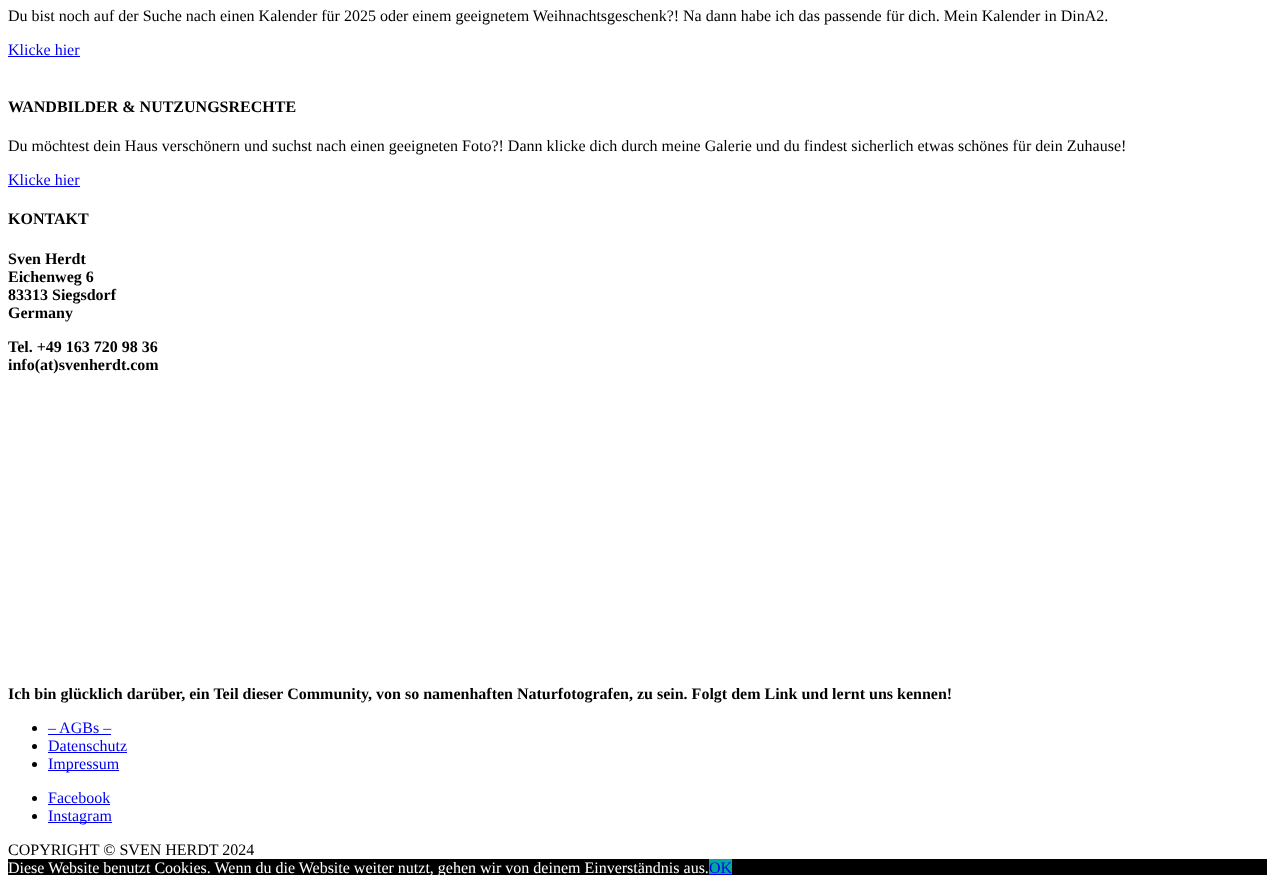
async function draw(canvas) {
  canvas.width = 1275
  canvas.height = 875
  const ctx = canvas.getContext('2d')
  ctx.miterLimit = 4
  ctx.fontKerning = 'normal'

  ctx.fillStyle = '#fff'
  ctx.fillRect(0, 0, 1275, 875)
  ctx.font = '16px Liberation Serif'
  ctx.fillStyle = '#000'
  ctx.fillText('Du bist noch auf der Suche nach einen Kalender für 2025 oder einem geeignetem Weihnachtsgeschenk?! Na dann habe ich das passende für dich. Mein Kalender in DinA2.', 8, 21)
  ctx.fillStyle = '#00e'
  ctx.fillText('Klicke hier', 8, 55)
  ctx.fillRect(8, 56, 72, 1)
  ctx.font = 'bold 16px Liberation Serif'
  ctx.fillStyle = '#000'
  ctx.fillText('WANDBILDER & NUTZUNGSRECHTE', 8, 112)
  ctx.font = '16px Liberation Serif'
  ctx.fillText('Du möchtest dein Haus verschönern und suchst nach einen geeigneten Foto?! Dann klicke dich durch meine Galerie und du findest sicherlich etwas schönes für dein Zuhause!', 8, 151)
  ctx.fillStyle = '#00e'
  ctx.fillText('Klicke hier', 8, 185)
  ctx.fillRect(8, 186, 72, 1)
  ctx.font = 'bold 16px Liberation Serif'
  ctx.fillStyle = '#000'
  ctx.fillText('KONTAKT', 8, 224)
  ctx.fillText('Sven Herdt', 8, 264)
  ctx.fillText('Eichenweg 6', 8, 282)
  ctx.fillText('83313 Siegsdorf', 8, 300)
  ctx.fillText('Germany', 8, 318)
  ctx.fillText('Tel. +49 163 720 98 36', 8, 352)
  ctx.fillText('info(at)svenherdt.com', 8, 370)
  ctx.fillText('Ich bin glücklich darüber, ein Teil dieser Community, von so namenhaften Naturfotografen, zu sein. Folgt dem Link und lernt uns kennen!', 8, 699)
  ctx.beginPath()
  ctx.arc(34.5, 728.5, 2.5, 0, 2 * Math.PI)
  ctx.fill()
  ctx.font = '16px Liberation Serif'
  ctx.fillStyle = '#00e'
  ctx.fillText('– AGBs –', 48, 733)
  ctx.fillRect(48, 734, 63, 1)
  ctx.fillStyle = '#000'
  ctx.beginPath()
  ctx.arc(34.5, 746.5, 2.5, 0, 2 * Math.PI)
  ctx.fill()
  ctx.fillStyle = '#00e'
  ctx.fillText('Datenschutz', 48, 751)
  ctx.fillRect(48, 752, 79, 1)
  ctx.fillStyle = '#000'
  ctx.beginPath()
  ctx.arc(34.5, 764.5, 2.5, 0, 2 * Math.PI)
  ctx.fill()
  ctx.fillStyle = '#00e'
  ctx.fillRect(48, 770, 71, 1)
  ctx.fillText('Impressum', 48, 769)
  ctx.fillStyle = '#000'
  ctx.beginPath()
  ctx.arc(34.5, 798.5, 2.5, 0, 2 * Math.PI)
  ctx.fill()
  ctx.fillStyle = '#00e'
  ctx.fillText('Facebook', 48, 803)
  ctx.fillRect(48, 804, 62, 1)
  ctx.fillStyle = '#000'
  ctx.beginPath()
  ctx.arc(34.5, 816.5, 2.5, 0, 2 * Math.PI)
  ctx.fill()
  ctx.fillStyle = '#00e'
  ctx.fillRect(48, 822, 64, 1)
  ctx.fillText('Instagram', 48, 821)
  ctx.fillStyle = '#000'
  ctx.fillText('COPYRIGHT © SVEN HERDT 2024', 8, 855)
  ctx.fillRect(8, 859, 1259, 16)
  ctx.fillStyle = '#fff'
  ctx.fillText('Diese Website benutzt Cookies. Wenn du die Website weiter nutzt, gehen wir von deinem Einverständnis aus.', 8, 873)
  ctx.fillStyle = '#00a99d'
  ctx.fillRect(709, 859, 23, 15)
  ctx.fillStyle = '#00e'
  ctx.fillText('OK', 709, 873)
  ctx.fillRect(709, 874, 23, 1)
}

draw(document.querySelector('canvas'))
